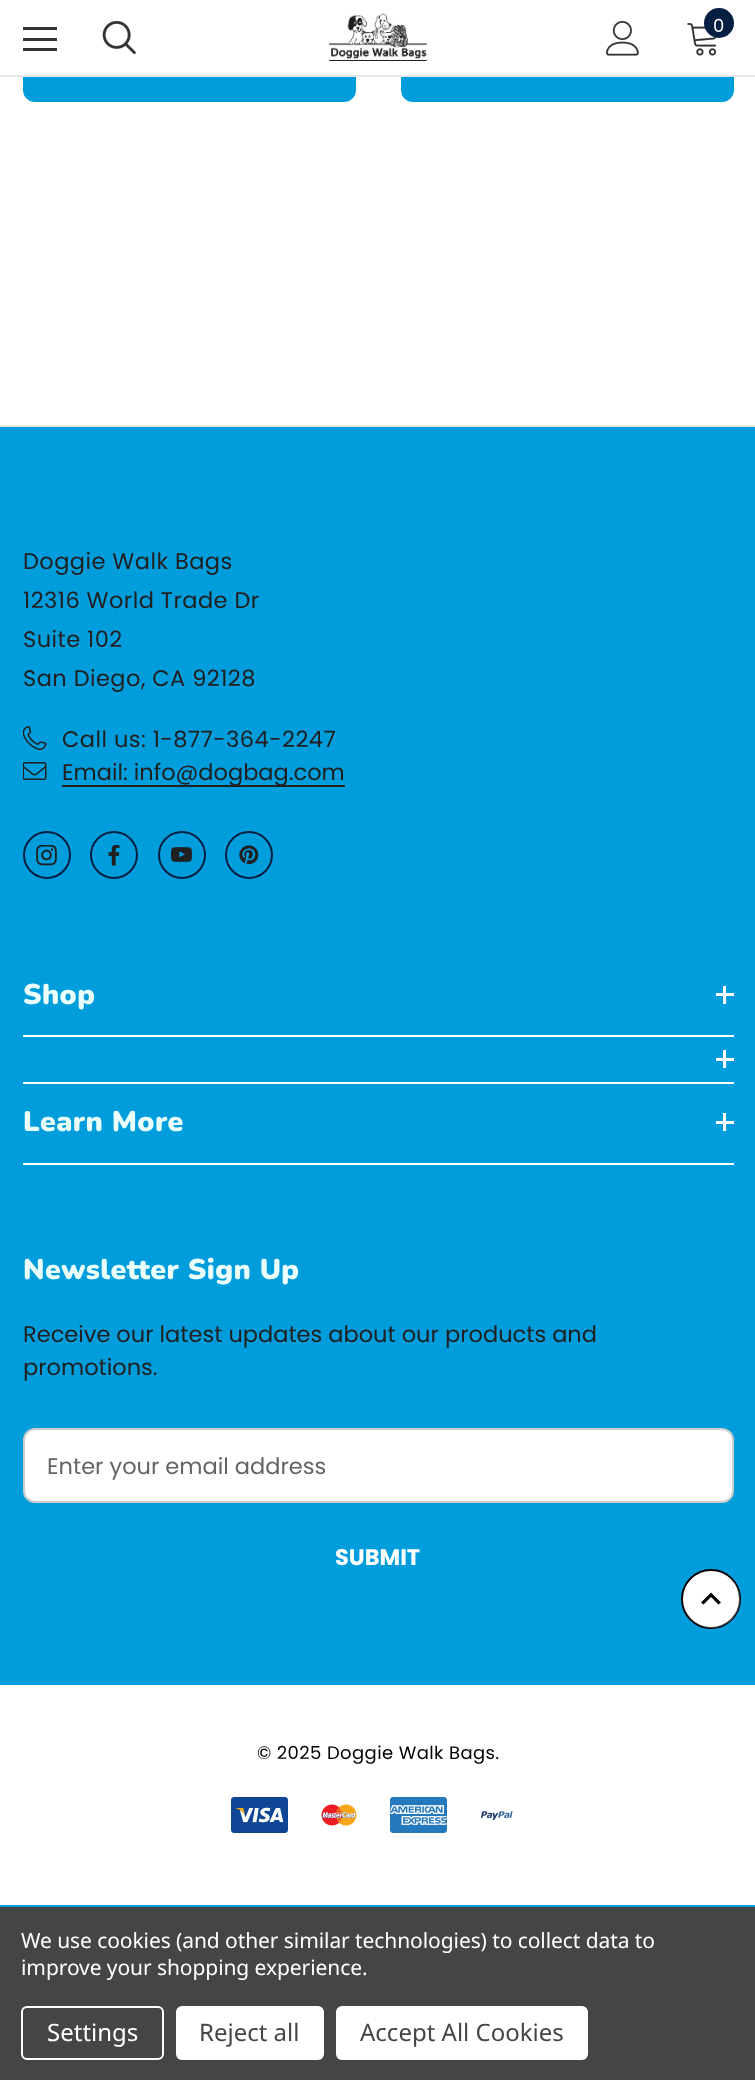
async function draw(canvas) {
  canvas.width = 755
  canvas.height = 2080
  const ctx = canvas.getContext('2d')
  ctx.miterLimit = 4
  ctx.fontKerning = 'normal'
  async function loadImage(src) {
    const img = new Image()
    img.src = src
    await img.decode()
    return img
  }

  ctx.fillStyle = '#fff'
  ctx.fillRect(0, 0, 755, 2080)
  ctx.fillStyle = '#009ddd'
  ctx.beginPath()
  ctx.roundRect(24, 40, 331, 61, 11)
  ctx.fill()
  ctx.strokeStyle = '#009ddd'
  ctx.lineWidth = 2
  ctx.stroke()
  ctx.beginPath()
  ctx.roundRect(402, 40, 331, 61, 11)
  ctx.fill()
  ctx.stroke()
  ctx.fillStyle = '#fff'
  ctx.fillRect(23, 39, 711, 36)
  ctx.fillStyle = '#e6e6e6'
  ctx.fillRect(0, 75, 755, 2)
  ctx.fillStyle = '#333'
  ctx.fillRect(23, 38, 34, 3)
  ctx.fillRect(23, 27, 34, 3)
  ctx.fillRect(23, 48, 34, 3)
  ctx.drawImage(await loadImage('image0.png'), 102, 20, 34, 34)
  ctx.drawImage(await loadImage('image1.png'), 328, 13, 100, 48)
  ctx.drawImage(await loadImage('image2.png'), 606, 21, 33, 35)
  ctx.drawImage(await loadImage('image3.png'), 687, 23, 30, 33)
  ctx.fillStyle = '#051f43'
  ctx.beginPath()
  ctx.arc(719, 23, 15, 0, 2 * Math.PI)
  ctx.fill()
  ctx.font = '18px Poppins'
  ctx.fillStyle = '#fff'
  ctx.fillText('0', 713, 32)
  ctx.fillStyle = '#009ddd'
  ctx.fillRect(0, 427, 755, 1480)
  ctx.fillStyle = '#e6e6e6'
  ctx.fillRect(0, 425, 755, 2)
  ctx.letterSpacing = '0.45px'
  ctx.font = '22.5px Poppins'
  ctx.fillStyle = '#202020'
  ctx.fillText('Doggie Walk Bags', 23, 569)
  ctx.fillText('12316 World Trade Dr', 23, 608)
  ctx.fillText('Suite 102', 23, 647)
  ctx.fillText('San Diego, CA 92128', 23, 686)
  ctx.drawImage(await loadImage('image4.png'), 23, 726, 24, 24)
  ctx.fillText('Call us: 1-877-364-2247', 62, 747)
  ctx.drawImage(await loadImage('image5.png'), 23, 762, 24, 18)
  ctx.fillRect(62, 785, 283, 2)
  ctx.letterSpacing = '0px'
  ctx.fillText('Email: info@dogbag.com', 62, 780)
  ctx.beginPath()
  ctx.arc(47, 855, 23, 0, 2 * Math.PI)
  ctx.strokeStyle = '#051f43'
  ctx.stroke()
  ctx.drawImage(await loadImage('image6.png'), 36, 845, 21, 21)
  ctx.beginPath()
  ctx.arc(114, 855, 23, 0, 2 * Math.PI)
  ctx.stroke()
  ctx.drawImage(await loadImage('image7.png'), 108, 845, 12, 21)
  ctx.beginPath()
  ctx.arc(182, 855, 23, 0, 2 * Math.PI)
  ctx.stroke()
  ctx.drawImage(await loadImage('image8.png'), 171, 847, 21, 15)
  ctx.beginPath()
  ctx.arc(249, 855, 23, 0, 2 * Math.PI)
  ctx.stroke()
  ctx.drawImage(await loadImage('image9.png'), 239, 845, 20, 20)
  ctx.fillStyle = '#fff'
  ctx.fillRect(23, 1035, 711, 2)
  ctx.letterSpacing = '0.4px'
  ctx.font = '900 28.5px Nunito'
  ctx.fillStyle = '#ebfffd'
  ctx.fillText('Shop', 23, 1004)
  ctx.fillStyle = '#fff'
  ctx.fillRect(723, 986, 3, 18)
  ctx.fillRect(716, 993, 18, 3)
  ctx.fillRect(23, 1082, 711, 2)
  ctx.fillRect(723, 1050, 3, 18)
  ctx.fillRect(716, 1058, 18, 3)
  ctx.fillRect(23, 1163, 711, 2)
  ctx.fillStyle = '#ebfffd'
  ctx.fillText('Learn More', 23, 1131)
  ctx.fillStyle = '#fff'
  ctx.fillRect(723, 1113, 3, 18)
  ctx.fillRect(716, 1121, 18, 3)
  ctx.fillStyle = '#ebfffd'
  ctx.fillText('Newsletter Sign Up', 23, 1279)
  ctx.letterSpacing = '0px'
  ctx.font = '22.5px Poppins'
  ctx.fillStyle = '#202020'
  ctx.fillText('Receive our latest updates about our products and', 23, 1342)
  ctx.fillText('promotions.', 23, 1375)
  ctx.fillStyle = '#fff'
  ctx.beginPath()
  ctx.roundRect(24, 1429, 709, 73, 11)
  ctx.fill()
  ctx.strokeStyle = '#ccc'
  ctx.stroke()
  ctx.fillStyle = '#646464'
  ctx.fillText('Enter your email address', 47, 1474)
  ctx.font = 'bold 22.5px Poppins'
  ctx.fillStyle = '#fff'
  ctx.fillText('SUBMIT', 335, 1565)
  ctx.fillRect(0, 1685, 755, 220)
  ctx.letterSpacing = '0.4px'
  ctx.font = '18px Poppins'
  ctx.fillStyle = '#010101'
  ctx.fillText('© 2025 Doggie Walk Bags.', 257, 1759)
  ctx.drawImage(await loadImage('image10.png'), 231, 1797, 57, 36)
  ctx.drawImage(await loadImage('image11.png'), 321, 1804, 36, 22)
  ctx.drawImage(await loadImage('image12.png'), 390, 1797, 57, 36)
  ctx.drawImage(await loadImage('image13.png'), 481, 1811, 32, 10)
  ctx.fillStyle = '#fff'
  ctx.beginPath()
  ctx.arc(711, 1599, 29, 0, 2 * Math.PI)
  ctx.fill()
  ctx.strokeStyle = '#000'
  ctx.stroke()
  ctx.fillStyle = '#ffffff4d'
  ctx.beginPath()
  ctx.arc(711.5, 1599.5, 28.5, 0, 2 * Math.PI)
  ctx.fill()
  ctx.fillStyle = '#000'
  ctx.beginPath()
  ctx.moveTo(718.5, 1604.5)
  ctx.lineTo(711, 1597)
  ctx.lineTo(703.5, 1604.5)
  ctx.lineTo(701, 1602.5)
  ctx.lineTo(711, 1592.5)
  ctx.lineTo(721, 1602.5)
  ctx.closePath()
  ctx.fill()
  ctx.fillStyle = '#454545'
  ctx.fillRect(0, 1907, 755, 173)
  ctx.letterSpacing = '-0.08px'
  ctx.font = '21px Noto Sans'
  ctx.fillStyle = '#fff'
  ctx.fillText('We use cookies (and other similar technologies) to collect data to', 21, 1948)
  ctx.fillText('improve your shopping experience.', 21, 1975)
  ctx.beginPath()
  ctx.roundRect(22, 2007, 141, 52, 5)
  ctx.strokeStyle = '#fff'
  ctx.stroke()
  ctx.letterSpacing = '0px'
  ctx.font = '24px Noto Sans'
  ctx.fillText('Settings', 47, 2041)
  ctx.beginPath()
  ctx.roundRect(176, 2006, 148, 54, 6)
  ctx.fill()
  ctx.fillStyle = '#454545'
  ctx.fillText('Reject all', 199, 2041)
  ctx.fillStyle = '#fff'
  ctx.beginPath()
  ctx.roundRect(336, 2006, 252, 54, 6)
  ctx.fill()
  ctx.fillStyle = '#454545'
  ctx.fillText('Accept All Cookies', 360, 2041)
}

draw(document.querySelector('canvas'))
